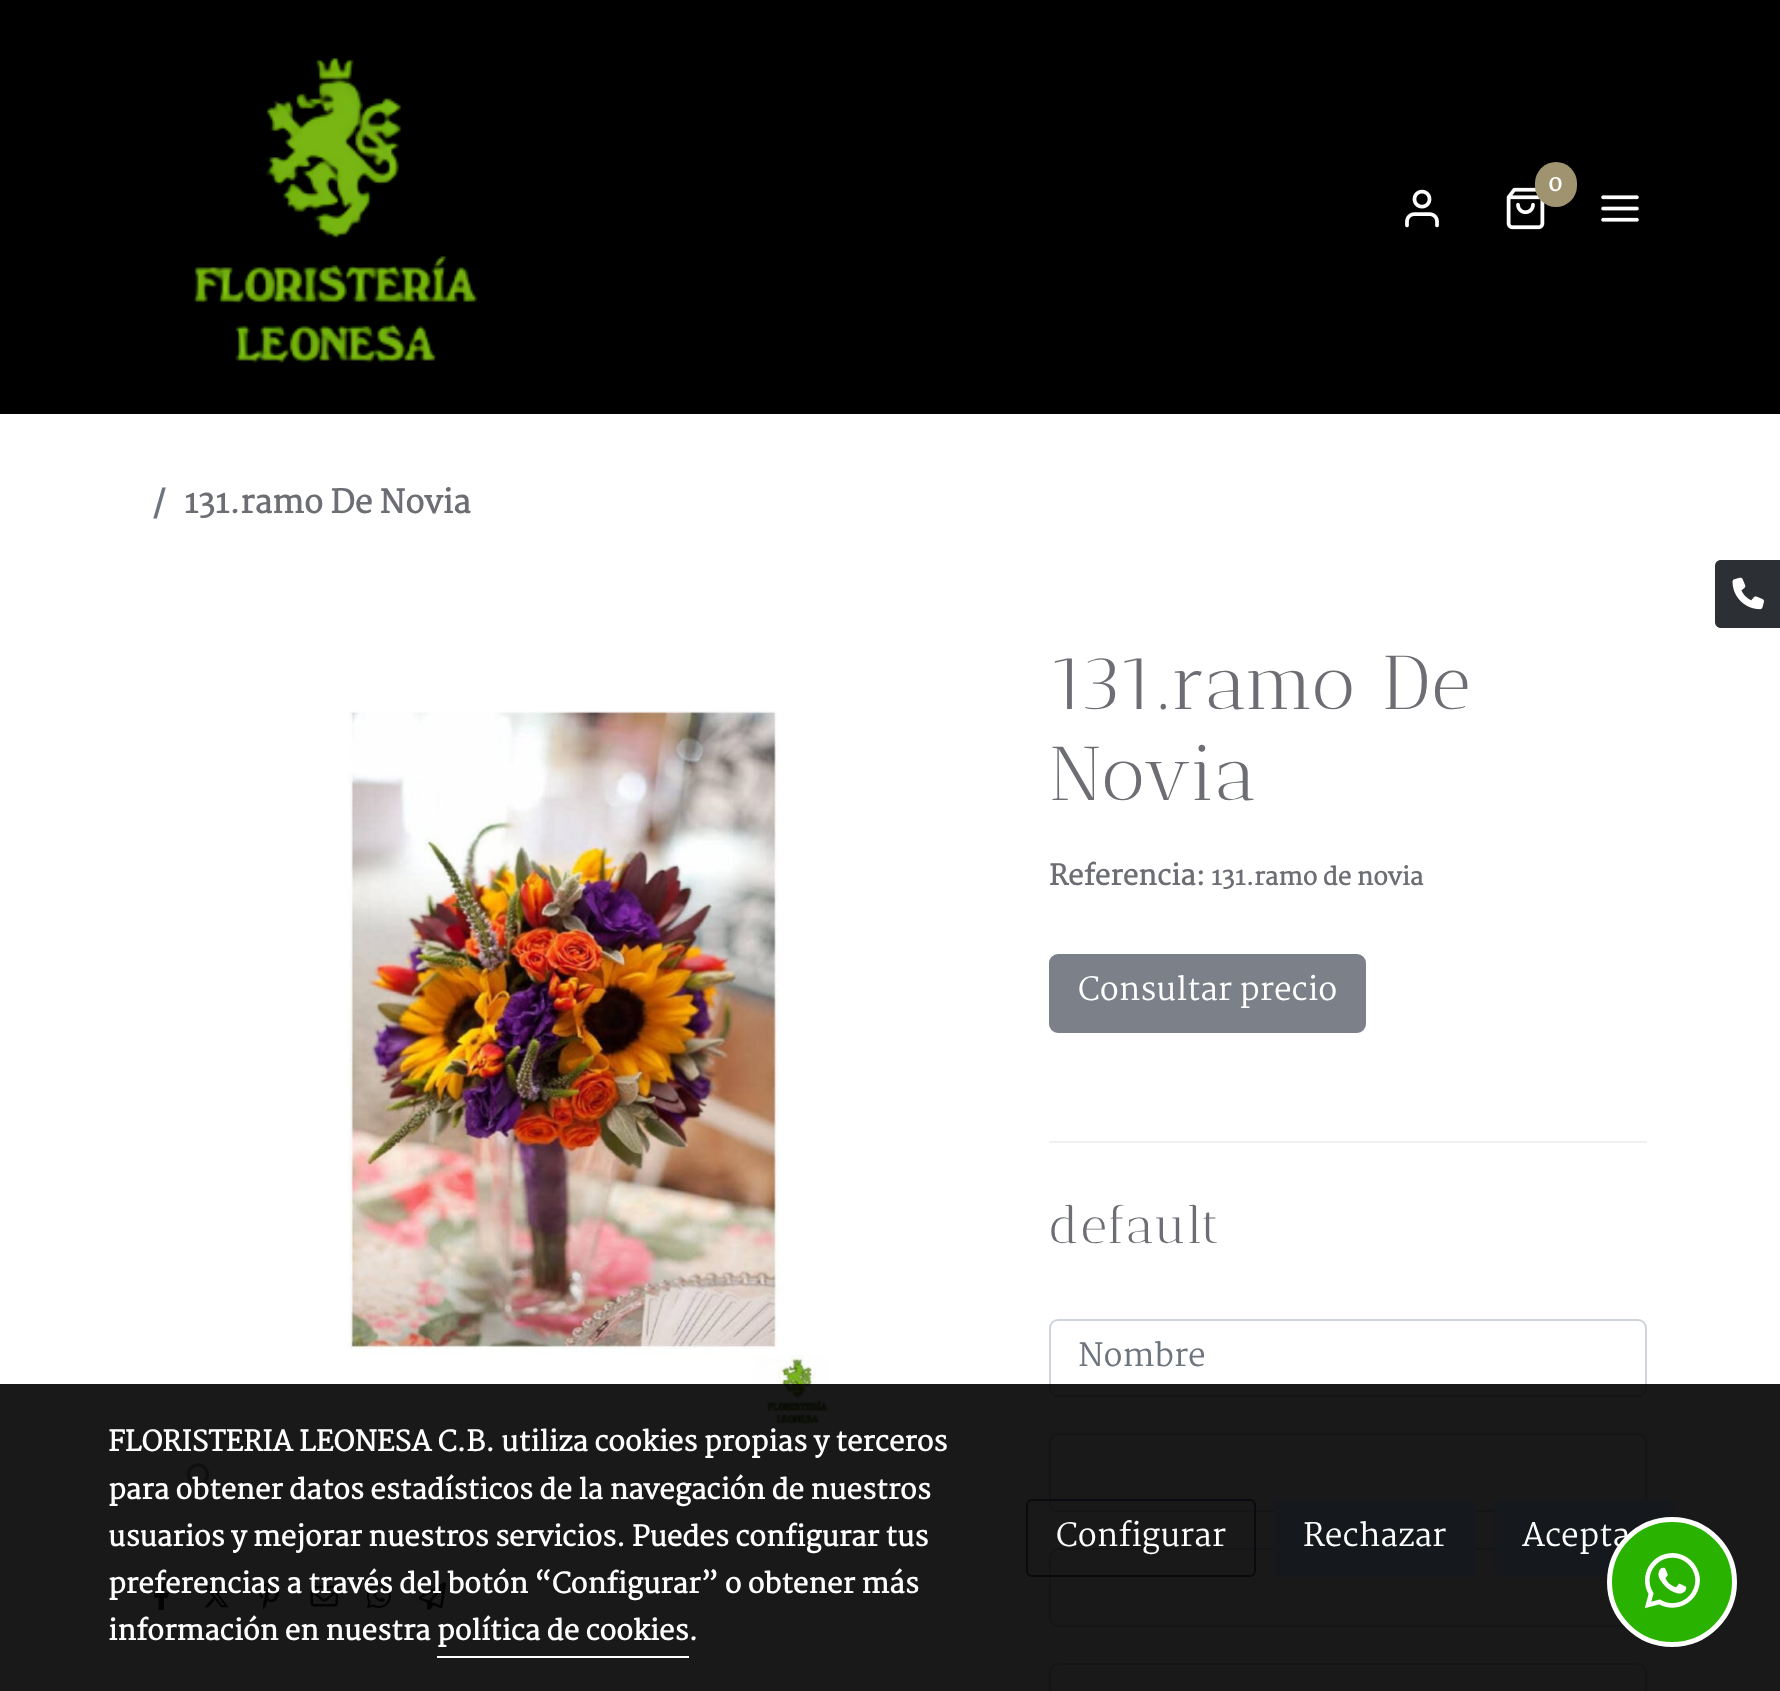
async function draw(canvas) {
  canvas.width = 1780
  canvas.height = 1691
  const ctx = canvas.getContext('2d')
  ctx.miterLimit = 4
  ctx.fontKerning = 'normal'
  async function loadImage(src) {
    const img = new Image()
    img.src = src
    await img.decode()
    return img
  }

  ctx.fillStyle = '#fff'
  ctx.fillRect(0, 0, 1780, 1691)
  ctx.fillStyle = '#000'
  ctx.fillRect(0, 0, 1780, 414)
  ctx.drawImage(await loadImage('image0.png'), 193, 58, 285, 305)
  ctx.drawImage(await loadImage('image1.png'), 1506, 187, 39, 43)
  ctx.fillStyle = '#a09370'
  ctx.beginPath()
  ctx.roundRect(1535, 162, 42, 45, 21)
  ctx.fill()
  ctx.font = 'bold 22px Martel'
  ctx.fillStyle = '#fff'
  ctx.fillText('0', 1548, 191)
  ctx.drawImage(await loadImage('image2.png'), 1405, 189, 34, 39)
  ctx.drawImage(await loadImage('image3.png'), 1601, 195, 38, 27)
  ctx.font = 'bold 31.5px Martel'
  ctx.fillStyle = '#6c757d'
  ctx.fillText('/', 153, 513)
  ctx.fillStyle = '#6c6e73'
  ctx.fillText('131.ramo De Novia', 184, 513)
  ctx.drawImage(await loadImage('image4.png'), 348, 711, 481, 714)
  ctx.drawImage(await loadImage('image5.png'), 186, 1463, 29, 28)
  ctx.drawImage(await loadImage('image6.png'), 154, 1582, 15, 28)
  ctx.drawImage(await loadImage('image7.png'), 204, 1585, 25, 23)
  ctx.drawImage(await loadImage('image8.png'), 258, 1582, 22, 28)
  ctx.drawImage(await loadImage('image9.png'), 310, 1585, 29, 22)
  ctx.drawImage(await loadImage('image10.png'), 366, 1584, 25, 25)
  ctx.drawImage(await loadImage('image11.png'), 418, 1582, 29, 28)
  ctx.letterSpacing = '2.25px'
  ctx.font = '76.25px Antic Didone'
  ctx.fillText('131.ramo De', 1049, 709)
  ctx.fillText('Novia', 1049, 800)
  ctx.letterSpacing = '0px'
  ctx.font = 'bold 27.55px Martel'
  ctx.fillText('Referencia:', 1049, 885)
  ctx.font = 'bold 24.1px Martel'
  ctx.fillText('131.ramo de novia', 1211, 885)
  ctx.fillStyle = '#7c8088'
  ctx.beginPath()
  ctx.roundRect(1050, 955, 315, 77, 8)
  ctx.fill()
  ctx.strokeStyle = '#7c8088'
  ctx.lineWidth = 2
  ctx.stroke()
  ctx.font = '31.5px Martel'
  ctx.fillStyle = '#fff'
  ctx.fillText('Consultar precio', 1078, 1000)
  ctx.fillStyle = '#eff0f2'
  ctx.fillRect(1049, 1141, 598, 2)
  ctx.letterSpacing = '2.25px'
  ctx.font = '51px Antic Didone'
  ctx.fillStyle = '#6c6e73'
  ctx.fillText('default', 1049, 1243)
  ctx.beginPath()
  ctx.roundRect(1050, 1320, 596, 76, 8)
  ctx.strokeStyle = '#ced4da'
  ctx.stroke()
  ctx.letterSpacing = '0px'
  ctx.font = '31.5px Martel'
  ctx.fillStyle = '#6c757d'
  ctx.fillText('Nombre', 1078, 1366)
  ctx.beginPath()
  ctx.roundRect(1050, 1434, 596, 77, 8)
  ctx.stroke()
  ctx.beginPath()
  ctx.roundRect(1050, 1549, 596, 77, 8)
  ctx.stroke()
  ctx.beginPath()
  ctx.roundRect(1050, 1664, 596, 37, 8)
  ctx.stroke()
  ctx.fillStyle = '#2c3034'
  ctx.beginPath()
  ctx.moveTo(1721, 560)
  ctx.lineTo(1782, 560)
  ctx.lineTo(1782, 628)
  ctx.lineTo(1721, 628)
  ctx.bezierCurveTo(1717.5, 628, 1715, 625.5, 1715, 622)
  ctx.lineTo(1715, 566)
  ctx.bezierCurveTo(1715, 562.5, 1717.5, 560, 1721, 560)
  ctx.closePath()
  ctx.fill()
  ctx.drawImage(await loadImage('image12.png'), 1732, 577, 32, 33)
  ctx.fillStyle = '#000000e6'
  ctx.fillRect(0, 1384, 1780, 307)
  ctx.font = 'bold 27.55px Martel'
  ctx.fillStyle = '#fff'
  ctx.fillText('FLORISTERIA LEONESA C.B. utiliza cookies propias y terceros', 108, 1451)
  ctx.fillText('para obtener datos estadísticos de la navegación de nuestros', 108, 1499)
  ctx.fillText('usuarios y mejorar nuestros servicios. Puedes configurar tus', 108, 1546)
  ctx.fillText('preferencias a través del botón “Configurar” o obtener más', 108, 1593)
  ctx.fillText('información en nuestra política de cookies.', 108, 1640)
  ctx.fillRect(437, 1656, 252, 2)
  ctx.beginPath()
  ctx.roundRect(1027, 1500, 228, 76, 5)
  ctx.strokeStyle = '#0a0b0e'
  ctx.stroke()
  ctx.font = '31.5px Martel'
  ctx.fillText('Configurar', 1056, 1546)
  ctx.fillStyle = '#15181c'
  ctx.beginPath()
  ctx.roundRect(1274, 1499, 202, 78, 6)
  ctx.fill()
  ctx.fillStyle = '#fff'
  ctx.fillText('Rechazar', 1303, 1546)
  ctx.fillStyle = '#15181c'
  ctx.beginPath()
  ctx.roundRect(1494, 1499, 180, 78, 6)
  ctx.fill()
  ctx.fillStyle = '#fff'
  ctx.fillText('Acepta', 1522, 1546)
  ctx.fillStyle = '#29b200'
  ctx.beginPath()
  ctx.arc(1672, 1582, 62.5, 0, 2 * Math.PI)
  ctx.fill()
  ctx.strokeStyle = '#fff'
  ctx.lineWidth = 5
  ctx.stroke()
  ctx.drawImage(await loadImage('image13.png'), 1644, 1553, 56, 56)
}

draw(document.querySelector('canvas'))
